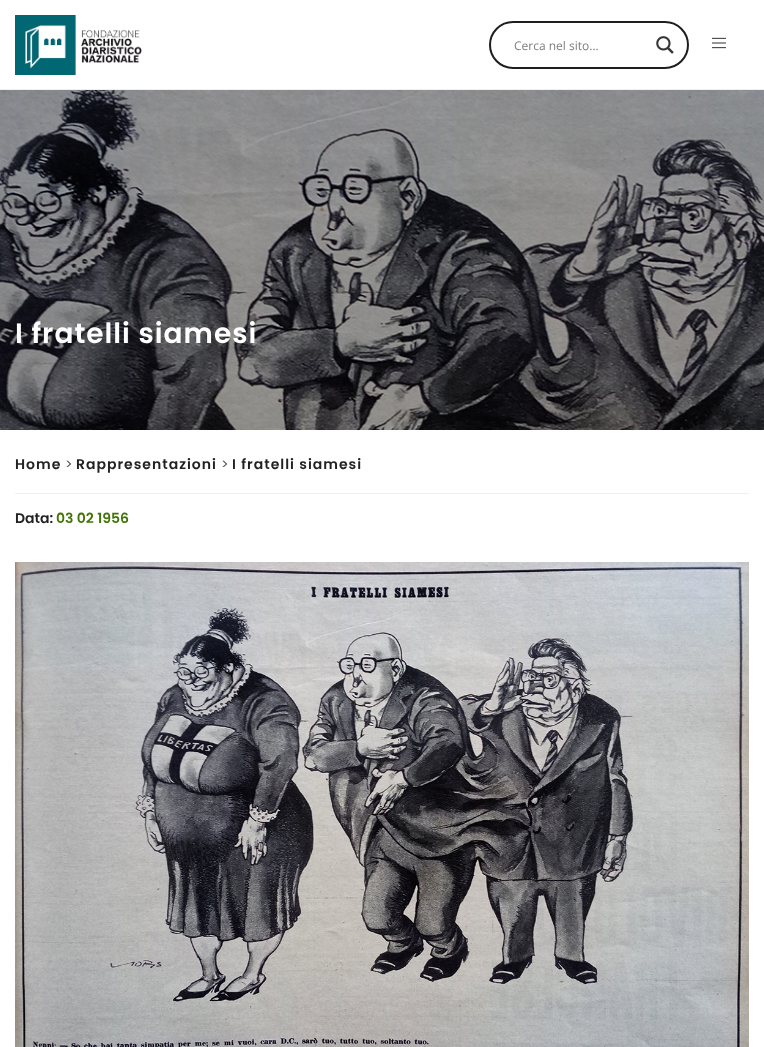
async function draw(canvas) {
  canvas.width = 764
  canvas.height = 1047
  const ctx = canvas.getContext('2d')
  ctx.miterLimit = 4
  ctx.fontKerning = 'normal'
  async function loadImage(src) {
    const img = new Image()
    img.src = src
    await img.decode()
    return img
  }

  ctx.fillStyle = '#fff'
  ctx.fillRect(0, 0, 764, 1047)
  ctx.fillStyle = '#f0f0f0'
  ctx.fillRect(0, 89, 764, 1)
  ctx.drawImage(await loadImage('image0.png'), 15, 15, 127, 60)
  ctx.beginPath()
  ctx.roundRect(490, 22, 198, 46, 23)
  ctx.strokeStyle = '#1e1e1e'
  ctx.lineWidth = 2
  ctx.stroke()
  ctx.font = '12px Open Sans'
  ctx.fillStyle = '#7d7d7d'
  ctx.fillText('Cerca nel sito...', 514, 50)
  ctx.drawImage(await loadImage('image1.png'), 656, 36, 18, 18)
  ctx.drawImage(await loadImage('image2.png'), 712, 37, 14, 12)
  ctx.drawImage(await loadImage('image3.png'), 0, 90, 764, 340)
  ctx.letterSpacing = '1px'
  ctx.font = '600 28px Poppins'
  ctx.fillStyle = '#fff'
  ctx.fillText('I fratelli siamesi', 15, 343)
  ctx.fillStyle = '#f0f0f0'
  ctx.fillRect(15, 493, 734, 1)
  ctx.font = '600 14px Poppins'
  ctx.fillStyle = '#222'
  ctx.fillText('Home', 15, 469)
  ctx.letterSpacing = '0px'
  ctx.font = '14px Poppins'
  ctx.fillStyle = '#555'
  ctx.fillText('>', 65, 469)
  ctx.letterSpacing = '1px'
  ctx.font = '600 14px Poppins'
  ctx.fillStyle = '#222'
  ctx.fillText('Rappresentazioni', 76, 469)
  ctx.letterSpacing = '0px'
  ctx.font = '14px Poppins'
  ctx.fillStyle = '#555'
  ctx.fillText('>', 221, 469)
  ctx.letterSpacing = '1px'
  ctx.font = '600 14px Poppins'
  ctx.fillStyle = '#222'
  ctx.fillText('I fratelli siamesi', 232, 469)
  ctx.letterSpacing = '0px'
  ctx.fillText('Data:', 15, 523)
  ctx.fillStyle = '#417505'
  ctx.fillText('03 02 1956', 56, 523)
  ctx.drawImage(await loadImage('image4.png'), 15, 562, 734, 485)
}

draw(document.querySelector('canvas'))
